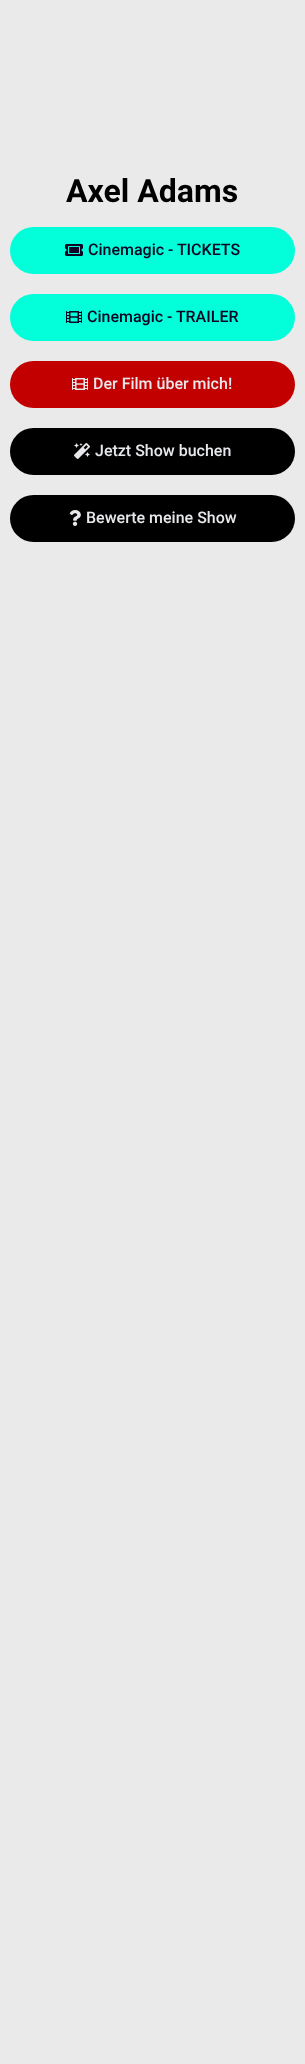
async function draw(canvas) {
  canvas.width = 305
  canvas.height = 2064
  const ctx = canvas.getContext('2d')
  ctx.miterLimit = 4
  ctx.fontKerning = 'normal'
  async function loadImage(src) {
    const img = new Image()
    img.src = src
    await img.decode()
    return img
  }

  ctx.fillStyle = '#eaeaea'
  ctx.fillRect(0, 0, 305, 2064)
  ctx.font = 'bold 32px Roboto'
  ctx.fillStyle = '#000'
  ctx.fillText('Axel Adams', 66, 202)
  ctx.fillStyle = '#02ffda'
  ctx.beginPath()
  ctx.roundRect(10, 227, 285, 47, 23.5)
  ctx.fill()
  ctx.drawImage(await loadImage('image0.png'), 65, 244, 18, 12)
  ctx.font = '500 16px Roboto'
  ctx.fillStyle = '#0d0523'
  ctx.fillText('Cinemagic - TICKETS', 88, 255)
  ctx.fillStyle = '#02ffda'
  ctx.beginPath()
  ctx.roundRect(10, 294, 285, 47, 23.5)
  ctx.fill()
  ctx.drawImage(await loadImage('image1.png'), 66, 311, 16, 12)
  ctx.fillStyle = '#0d0523'
  ctx.fillText('Cinemagic - TRAILER', 87, 322)
  ctx.fillStyle = '#c20000'
  ctx.beginPath()
  ctx.roundRect(10, 361, 285, 47, 23.5)
  ctx.fill()
  ctx.drawImage(await loadImage('image2.png'), 72, 378, 16, 12)
  ctx.fillStyle = '#e7e8eb'
  ctx.fillText('Der Film über mich!', 93, 389)
  ctx.fillStyle = '#000'
  ctx.beginPath()
  ctx.roundRect(10, 428, 285, 47, 23.5)
  ctx.fill()
  ctx.drawImage(await loadImage('image3.png'), 74, 443, 16, 16)
  ctx.fillStyle = '#e7e8eb'
  ctx.fillText('Jetzt Show buchen', 95, 456)
  ctx.fillStyle = '#000'
  ctx.beginPath()
  ctx.roundRect(10, 495, 285, 47, 23.5)
  ctx.fill()
  ctx.drawImage(await loadImage('image4.png'), 69, 510, 12, 16)
  ctx.fillStyle = '#e7e8eb'
  ctx.fillText('Bewerte meine Show', 86, 523)
}

draw(document.querySelector('canvas'))
